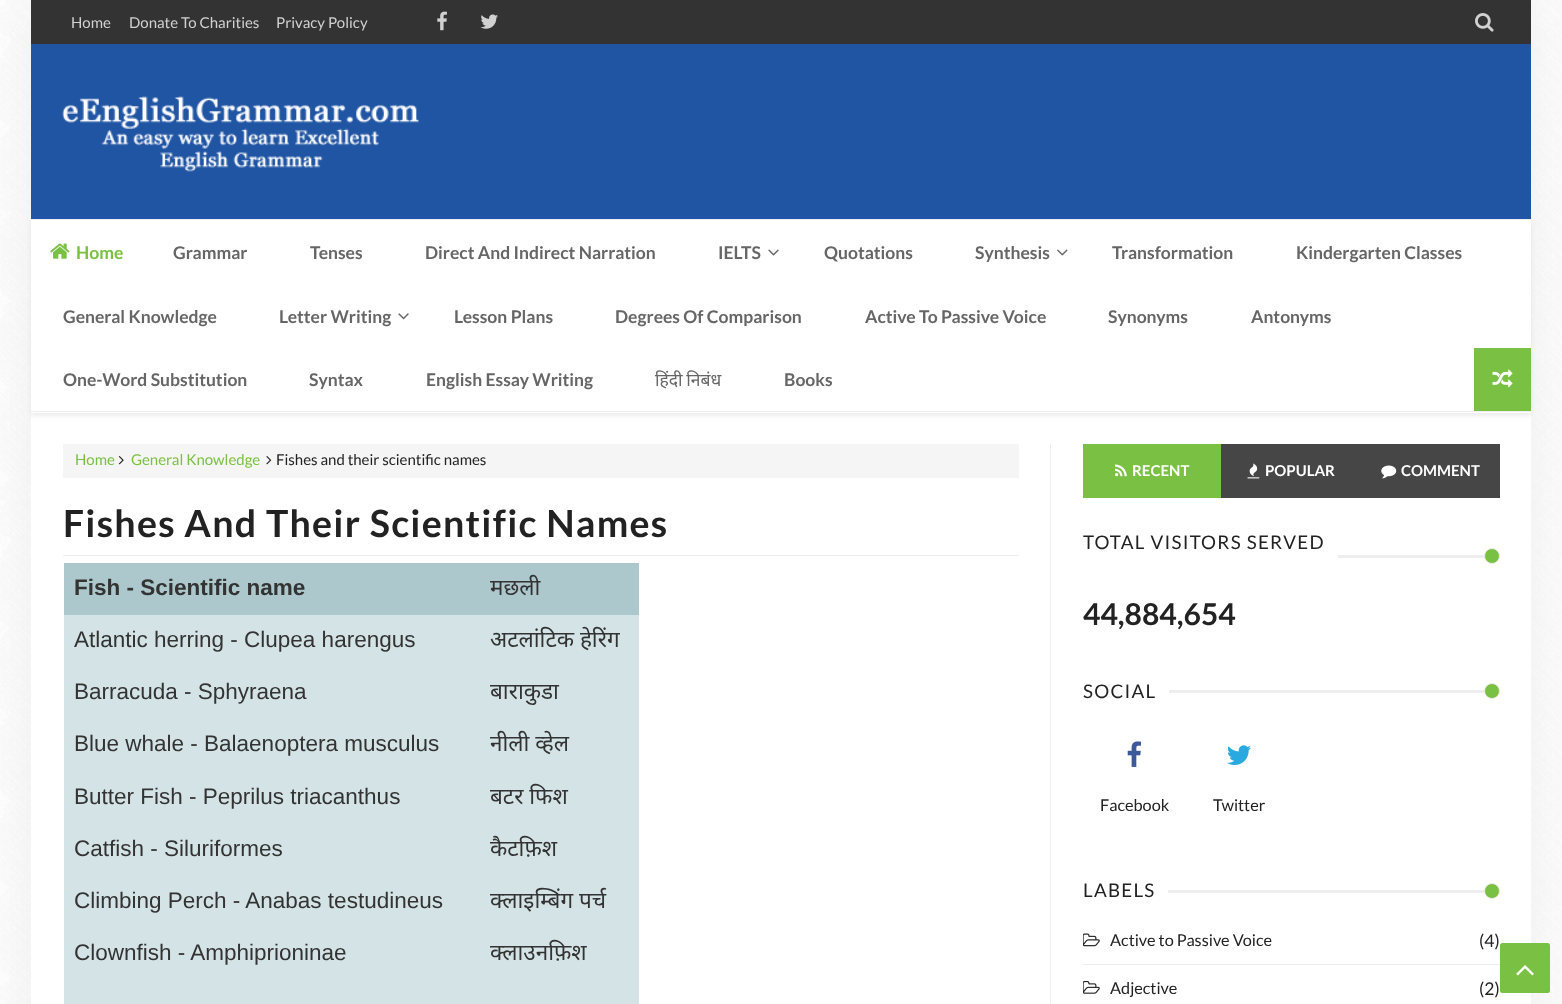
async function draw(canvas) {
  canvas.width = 1562
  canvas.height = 1004
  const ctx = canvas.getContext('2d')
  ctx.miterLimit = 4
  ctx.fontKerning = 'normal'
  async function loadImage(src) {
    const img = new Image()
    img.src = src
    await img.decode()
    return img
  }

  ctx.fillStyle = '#fff'
  ctx.fillRect(0, 0, 1562, 1004)
  ctx.drawImage(await loadImage('image0.png'), 0, 0, 1562, 1004)
  ctx.fillStyle = '#0000000d'
  ctx.filter = 'blur(25px)'
  ctx.beginPath()
  ctx.rect(31, 0, 1500, 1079)
  ctx.fill()
  ctx.filter = 'none'
  ctx.fillStyle = '#333'
  ctx.fillRect(31, 0, 1500, 44)
  ctx.font = '15px Lato'
  ctx.fillStyle = '#d1d1d1'
  ctx.fillText('Home', 71, 28)
  ctx.fillText('Donate To Charities', 129, 28)
  ctx.fillText('Privacy Policy', 276, 28)
  ctx.drawImage(await loadImage('image1.png'), 437, 11, 10, 20)
  ctx.drawImage(await loadImage('image2.png'), 480, 14, 18, 15)
  ctx.drawImage(await loadImage('image3.png'), 1475, 13, 19, 19)
  ctx.fillStyle = '#2055a4'
  ctx.fillRect(31, 44, 1500, 175)
  ctx.drawImage(await loadImage('image4.png'), 62, 96, 357, 76)
  ctx.fillStyle = '#fff'
  ctx.fillRect(31, 413, 1500, 591)
  ctx.fillStyle = '#00000012'
  ctx.filter = 'blur(2px)'
  ctx.beginPath()
  ctx.rect(31, 223, 1500, 193)
  ctx.fill()
  ctx.filter = 'none'
  ctx.fillStyle = '#fff'
  ctx.fillRect(31, 220, 1500, 193)
  ctx.fillStyle = '#eee'
  ctx.fillRect(31, 219, 1500, 1)
  ctx.fillRect(31, 411, 1500, 1)
  ctx.drawImage(await loadImage('image5.png'), 50, 243, 20, 16)
  ctx.font = 'bold 17.5px Lato'
  ctx.fillStyle = '#7ac143'
  ctx.fillText('Home', 76, 259)
  ctx.fillStyle = '#666'
  ctx.fillText('Grammar', 173, 259)
  ctx.fillText('Tenses', 310, 259)
  ctx.fillText('Direct And Indirect Narration', 425, 259)
  ctx.fillText('IELTS', 718, 259)
  ctx.drawImage(await loadImage('image6.png'), 768, 249, 11, 7)
  ctx.fillText('Quotations', 824, 259)
  ctx.fillText('Synthesis', 975, 259)
  ctx.drawImage(await loadImage('image7.png'), 1057, 249, 11, 7)
  ctx.fillText('Transformation', 1112, 259)
  ctx.fillText('Kindergarten Classes', 1296, 259)
  ctx.fillText('General Knowledge', 63, 323)
  ctx.fillText('Letter Writing', 279, 323)
  ctx.drawImage(await loadImage('image8.png'), 398, 313, 11, 7)
  ctx.fillText('Lesson Plans', 454, 323)
  ctx.fillText('Degrees Of Comparison', 615, 323)
  ctx.fillText('Active To Passive Voice', 865, 323)
  ctx.fillText('Synonyms', 1108, 323)
  ctx.fillText('Antonyms', 1251, 323)
  ctx.fillText('One-Word Substitution', 63, 386)
  ctx.fillText('Syntax', 309, 386)
  ctx.fillText('English Essay Writing', 426, 386)
  ctx.wordSpacing = '-1px'
  ctx.font = '17.5px Noto Sans'
  ctx.fillText('हिंदी निबंध', 655, 386)
  ctx.wordSpacing = '0px'
  ctx.font = 'bold 17.5px Lato'
  ctx.fillText('Books', 784, 386)
  ctx.fillStyle = '#7ac143'
  ctx.fillRect(1474, 348, 57, 63)
  ctx.drawImage(await loadImage('image9.png'), 1492, 369, 21, 19)
  ctx.fillStyle = '#eee'
  ctx.fillRect(1050, 444, 1, 560)
  ctx.fillStyle = '#f5f5f5'
  ctx.fillRect(63, 444, 956, 34)
  ctx.font = '15px Lato'
  ctx.fillStyle = '#7ac143'
  ctx.fillText('Home', 75, 465)
  ctx.drawImage(await loadImage('image10.png'), 118, 456, 6, 9)
  ctx.fillText('General Knowledge', 131, 465)
  ctx.drawImage(await loadImage('image11.png'), 266, 456, 6, 9)
  ctx.fillStyle = '#222'
  ctx.fillText('Fishes and their scientific names', 276, 465)
  ctx.fillStyle = '#eee'
  ctx.fillRect(63, 555, 956, 1)
  ctx.letterSpacing = '1.25px'
  ctx.font = 'bold 37.5px Lato'
  ctx.fillStyle = '#222'
  ctx.fillText('Fishes And Their Scientific Names', 63, 537)
  ctx.fillStyle = '#acc8cc'
  ctx.fillRect(64, 563, 575, 52)
  ctx.letterSpacing = '0px'
  ctx.font = 'bold 22.5px Liberation Sans'
  ctx.fillStyle = '#333'
  ctx.fillText('Fish - Scientific name', 74, 595)
  ctx.font = '22.5px Noto Sans'
  ctx.fillText('मछली', 490, 595)
  ctx.fillStyle = '#d4e3e5'
  ctx.fillRect(64, 615, 575, 389)
  ctx.font = '22.5px Liberation Sans'
  ctx.fillStyle = '#333'
  ctx.fillText('Atlantic herring - Clupea harengus', 74, 647)
  ctx.font = '22.5px Noto Sans'
  ctx.fillText('अटलांटिक हेरिंग', 490, 647)
  ctx.font = '22.5px Liberation Sans'
  ctx.fillText('Barracuda - Sphyraena', 74, 699)
  ctx.font = '22.5px Noto Sans'
  ctx.fillText('बाराकुडा', 490, 699)
  ctx.font = '22.5px Liberation Sans'
  ctx.fillText('Blue whale - Balaenoptera musculus', 74, 751)
  ctx.font = '22.5px Noto Sans'
  ctx.fillText('नीली व्हेल', 490, 751)
  ctx.font = '22.5px Liberation Sans'
  ctx.fillText('Butter Fish - Peprilus triacanthus', 74, 804)
  ctx.font = '22.5px Noto Sans'
  ctx.fillText('बटर फिश', 490, 804)
  ctx.font = '22.5px Liberation Sans'
  ctx.fillText('Catfish - Siluriformes', 74, 856)
  ctx.font = '22.5px Noto Sans'
  ctx.fillText('कैटफ़िश', 490, 856)
  ctx.font = '22.5px Liberation Sans'
  ctx.fillText('Climbing Perch - Anabas testudineus', 74, 908)
  ctx.font = '22.5px Noto Sans'
  ctx.fillText('क्लाइम्बिंग पर्च', 490, 908)
  ctx.font = '22.5px Liberation Sans'
  ctx.fillText('Clownfish - Amphiprioninae', 74, 960)
  ctx.font = '22.5px Noto Sans'
  ctx.fillText('क्लाउनफ़िश', 490, 960)
  ctx.fillStyle = '#7ac143'
  ctx.fillRect(1083, 444, 138, 54)
  ctx.drawImage(await loadImage('image12.png'), 1115, 464, 12, 13)
  ctx.font = 'bold 15px Lato'
  ctx.fillStyle = '#fff'
  ctx.fillText('RECENT', 1132, 476)
  ctx.fillStyle = '#464646'
  ctx.fillRect(1221, 444, 279, 54)
  ctx.drawImage(await loadImage('image13.png'), 1247, 463, 13, 16)
  ctx.fillStyle = '#fff'
  ctx.fillText('POPULAR', 1265, 476)
  ctx.drawImage(await loadImage('image14.png'), 1381, 465, 16, 14)
  ctx.fillText('COMMENT', 1401, 476)
  ctx.letterSpacing = '1.25px'
  ctx.font = '18.75px Lato'
  ctx.fillStyle = '#222'
  ctx.fillText('TOTAL VISITORS SERVED', 1083, 549)
  ctx.fillStyle = '#eee'
  ctx.fillRect(1338, 555, 162, 3)
  ctx.fillStyle = '#7ac143'
  ctx.beginPath()
  ctx.arc(1492, 556, 7.5, 0, 2 * Math.PI)
  ctx.fill()
  ctx.strokeStyle = '#eee'
  ctx.stroke()
  ctx.letterSpacing = '0px'
  ctx.font = 'bold 30px Lato'
  ctx.fillStyle = '#222'
  ctx.fillText('44,884,654', 1083, 625)
  ctx.letterSpacing = '1.25px'
  ctx.font = '18.75px Lato'
  ctx.fillText('SOCIAL', 1083, 698)
  ctx.fillStyle = '#eee'
  ctx.fillRect(1169, 690, 331, 3)
  ctx.fillStyle = '#7ac143'
  ctx.beginPath()
  ctx.arc(1492, 691, 7.5, 0, 2 * Math.PI)
  ctx.fill()
  ctx.stroke()
  ctx.drawImage(await loadImage('image15.png'), 1127, 741, 14, 26)
  ctx.letterSpacing = '0px'
  ctx.font = '16.25px Lato'
  ctx.fillStyle = '#222'
  ctx.fillText('Facebook', 1100, 811)
  ctx.drawImage(await loadImage('image16.png'), 1227, 745, 24, 20)
  ctx.fillText('Twitter', 1213, 811)
  ctx.letterSpacing = '1.25px'
  ctx.font = '18.75px Lato'
  ctx.fillText('LABELS', 1083, 897)
  ctx.fillStyle = '#eee'
  ctx.fillRect(1168, 890, 332, 3)
  ctx.fillStyle = '#7ac143'
  ctx.beginPath()
  ctx.arc(1492, 891, 7.5, 0, 2 * Math.PI)
  ctx.fill()
  ctx.stroke()
  ctx.fillStyle = '#eee'
  ctx.fillRect(1083, 964, 417, 1)
  ctx.drawImage(await loadImage('image17.png'), 1083, 933, 17, 14)
  ctx.letterSpacing = '0px'
  ctx.font = '16.25px Lato'
  ctx.fillStyle = '#222'
  ctx.fillText('Active to Passive Voice', 1110, 946)
  ctx.font = '17.5px Lato'
  ctx.fillText('(4)', 1479, 947)
  ctx.drawImage(await loadImage('image18.png'), 1083, 981, 17, 13)
  ctx.font = '16.25px Lato'
  ctx.fillText('Adjective', 1110, 994)
  ctx.font = '17.5px Lato'
  ctx.fillText('(2)', 1479, 995)
  ctx.fillStyle = '#7ac143'
  ctx.beginPath()
  ctx.roundRect(1500, 943, 50, 50, 2.5)
  ctx.fill()
  ctx.drawImage(await loadImage('image19.png'), 1516, 965, 18, 11)
}

draw(document.querySelector('canvas'))
